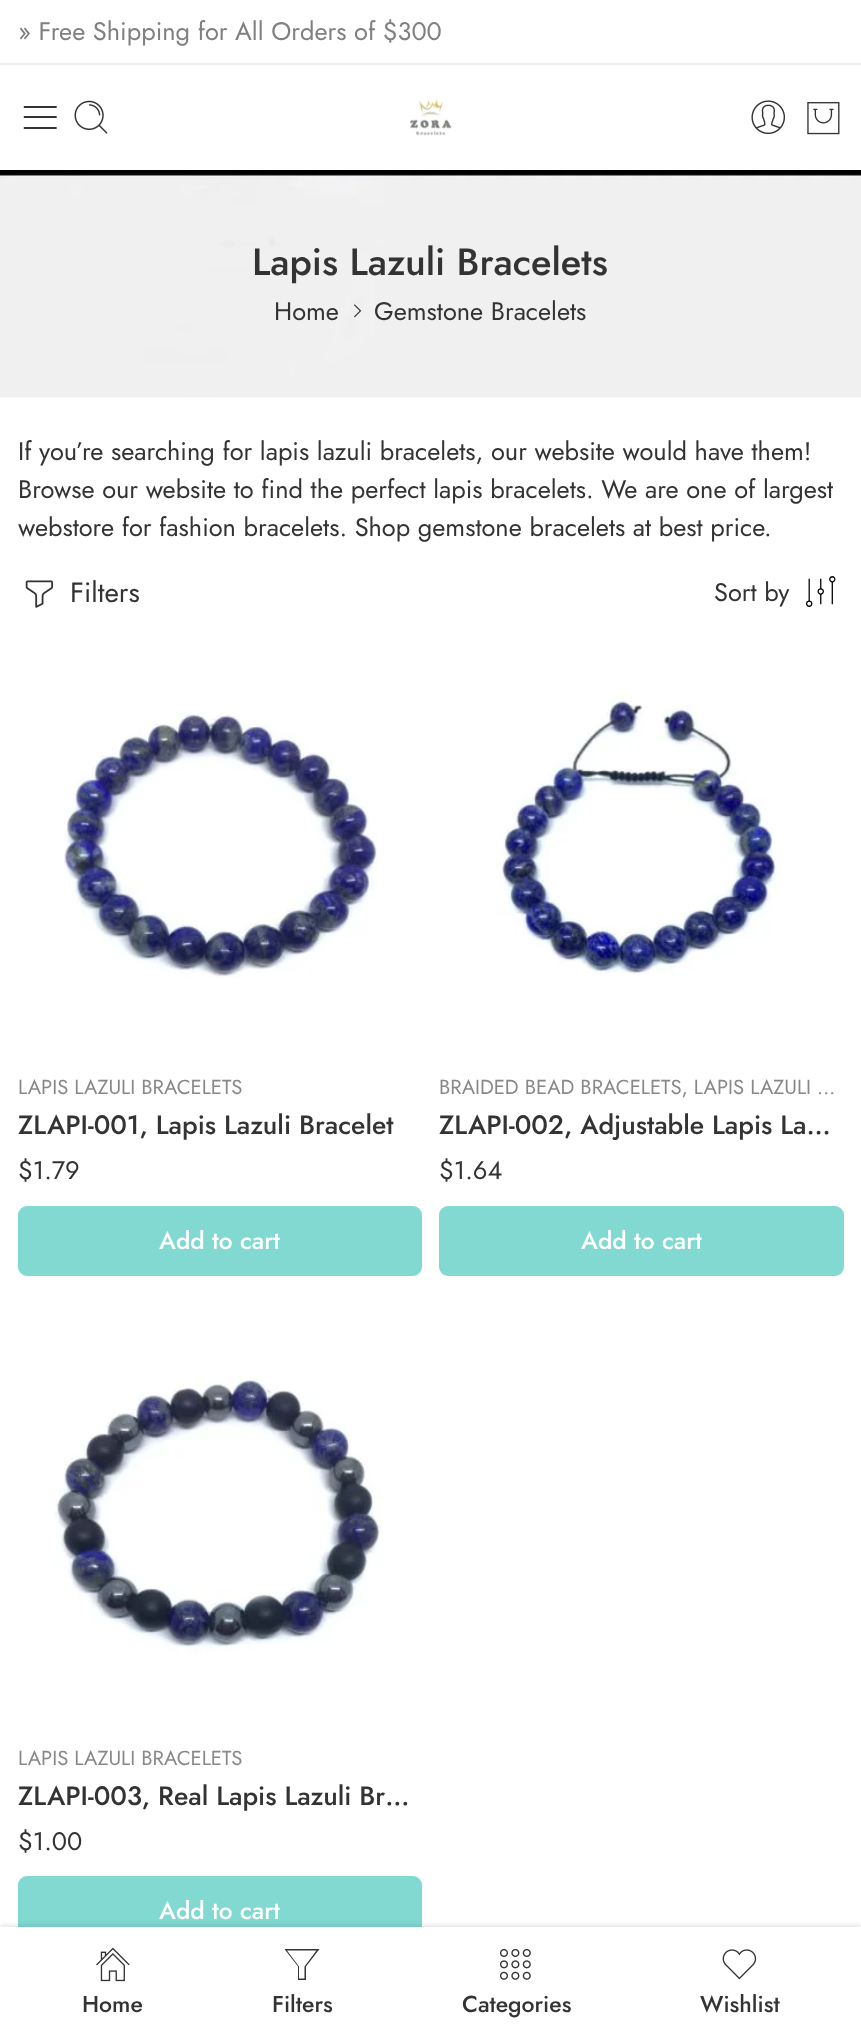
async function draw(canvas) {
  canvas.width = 861
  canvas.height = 2033
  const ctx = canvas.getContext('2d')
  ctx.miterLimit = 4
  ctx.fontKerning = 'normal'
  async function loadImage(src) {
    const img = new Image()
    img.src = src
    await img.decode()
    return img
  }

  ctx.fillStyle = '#fff'
  ctx.fillRect(0, 0, 861, 2033)
  ctx.fillStyle = '#ececec'
  ctx.fillRect(0, 63, 861, 2)
  ctx.font = '25.4px Jost'
  ctx.fillStyle = '#808080'
  ctx.fillText('» Free Shipping for All Orders of $300', 18, 40)
  ctx.beginPath()
  ctx.moveTo(24.5, 117)
  ctx.lineTo(56, 117)
  ctx.moveTo(24.5, 107)
  ctx.lineTo(56, 107)
  ctx.moveTo(24.5, 128)
  ctx.lineTo(56, 128)
  ctx.strokeStyle = '#333'
  ctx.lineWidth = 1.8
  ctx.lineCap = 'round'
  ctx.lineJoin = 'round'
  ctx.stroke()
  ctx.drawImage(await loadImage('image0.png'), 74, 100, 34, 34)
  ctx.drawImage(await loadImage('image1.png'), 409, 99, 43, 37)
  ctx.drawImage(await loadImage('image2.png'), 751, 100, 35, 35)
  ctx.drawImage(await loadImage('image3.png'), 807, 102, 33, 33)
  ctx.drawImage(await loadImage('image4.png'), 0, 170, 861, 228)
  ctx.font = '500 38px Jost'
  ctx.fillStyle = '#333'
  ctx.fillText('Lapis Lazuli Bracelets', 252, 275)
  ctx.font = '25.4px Jost'
  ctx.fillText('Home', 274, 320)
  ctx.drawImage(await loadImage('image5.png'), 354, 304, 8, 14)
  ctx.fillText('Gemstone Bracelets', 374, 320)
  ctx.fillText('If you’re searching for lapis lazuli bracelets, our website would have them!', 18, 460)
  ctx.fillText('Browse our website to find the perfect lapis bracelets. We are one of largest', 18, 498)
  ctx.fillText('webstore for fashion bracelets. Shop gemstone bracelets at best price.', 18, 536)
  ctx.drawImage(await loadImage('image6.png'), 25, 580, 29, 28)
  ctx.font = '28px Jost'
  ctx.fillText('Filters', 70, 602)
  ctx.font = '25.4px Jost'
  ctx.fillText('Sort by', 714, 601)
  ctx.drawImage(await loadImage('image7.png'), 806, 576, 30, 31)
  ctx.drawImage(await loadImage('image8.png'), 64, 714, 314, 264)
  ctx.font = '20.25px Jost'
  ctx.fillStyle = '#888'
  ctx.fillText('LAPIS LAZULI BRACELETS', 18, 1094)
  ctx.font = '500 26.6px Jost'
  ctx.fillStyle = '#333'
  ctx.fillText('ZLAPI-001, Lapis Lazuli Bracelet', 18, 1134)
  ctx.font = '25.4px Jost'
  ctx.fillText('$1.79', 18, 1179)
  ctx.fillStyle = '#82d9d1'
  ctx.beginPath()
  ctx.roundRect(19, 1207, 402, 68, 8)
  ctx.fill()
  ctx.strokeStyle = '#82d9d1'
  ctx.lineWidth = 2
  ctx.lineJoin = 'miter'
  ctx.stroke()
  ctx.font = '500 24.5px Jost'
  ctx.fillStyle = '#fff'
  ctx.fillText('Add to cart', 159, 1249)
  ctx.drawImage(await loadImage('image9.png'), 496, 696, 284, 278)
  ctx.font = '20.25px Jost'
  ctx.fillStyle = '#888'
  ctx.fillText('BRAIDED BEAD BRACELETS, LAPIS LAZULI …', 439, 1094)
  ctx.font = '500 26.6px Jost'
  ctx.fillStyle = '#333'
  ctx.fillText('ZLAPI-002, Adjustable Lapis La…', 439, 1134)
  ctx.font = '25.4px Jost'
  ctx.fillText('$1.64', 439, 1179)
  ctx.fillStyle = '#82d9d1'
  ctx.beginPath()
  ctx.roundRect(440, 1207, 403, 68, 8)
  ctx.fill()
  ctx.stroke()
  ctx.font = '500 24.5px Jost'
  ctx.fillStyle = '#fff'
  ctx.fillText('Add to cart', 581, 1249)
  ctx.drawImage(await loadImage('image10.png'), 54, 1376, 329, 279)
  ctx.font = '20.25px Jost'
  ctx.fillStyle = '#888'
  ctx.fillText('LAPIS LAZULI BRACELETS', 18, 1765)
  ctx.font = '500 26.6px Jost'
  ctx.fillStyle = '#333'
  ctx.fillText('ZLAPI-003, Real Lapis Lazuli Br…', 18, 1805)
  ctx.font = '25.4px Jost'
  ctx.fillText('$1.00', 18, 1850)
  ctx.fillStyle = '#82d9d1'
  ctx.beginPath()
  ctx.roundRect(19, 1877, 402, 68, 8)
  ctx.fill()
  ctx.stroke()
  ctx.font = '500 24.5px Jost'
  ctx.fillStyle = '#fff'
  ctx.fillText('Add to cart', 159, 1919)
  ctx.fillStyle = '#0000001a'
  ctx.filter = 'blur(2.5px)'
  ctx.beginPath()
  ctx.rect(0, 1925, 861, 107)
  ctx.fill()
  ctx.filter = 'none'
  ctx.fillStyle = '#fff'
  ctx.fillRect(0, 1927, 861, 106)
  ctx.drawImage(await loadImage('image11.png'), 96, 1947, 34, 35)
  ctx.font = '500 23px Jost'
  ctx.fillStyle = '#333'
  ctx.fillText('Home', 82, 2012)
  ctx.beginPath()
  ctx.moveTo(306, 1980)
  ctx.lineTo(298, 1980)
  ctx.lineTo(298, 1966.5)
  ctx.lineTo(284.5, 1949)
  ctx.lineTo(319.5, 1949)
  ctx.lineTo(306, 1966.5)
  ctx.closePath()
  ctx.moveTo(299, 1978.5)
  ctx.lineTo(304.5, 1978.5)
  ctx.lineTo(304.5, 1966.5)
  ctx.lineTo(316.5, 1950.5)
  ctx.lineTo(287, 1950.5)
  ctx.lineTo(299, 1966.5)
  ctx.closePath()
  ctx.fill()
  ctx.fillText('Filters', 272, 2012)
  ctx.drawImage(await loadImage('image12.png'), 499, 1949, 32, 31)
  ctx.fillText('Categories', 462, 2012)
  ctx.drawImage(await loadImage('image13.png'), 722, 1949, 35, 31)
  ctx.fillText('Wishlist', 700, 2012)
}

draw(document.querySelector('canvas'))
